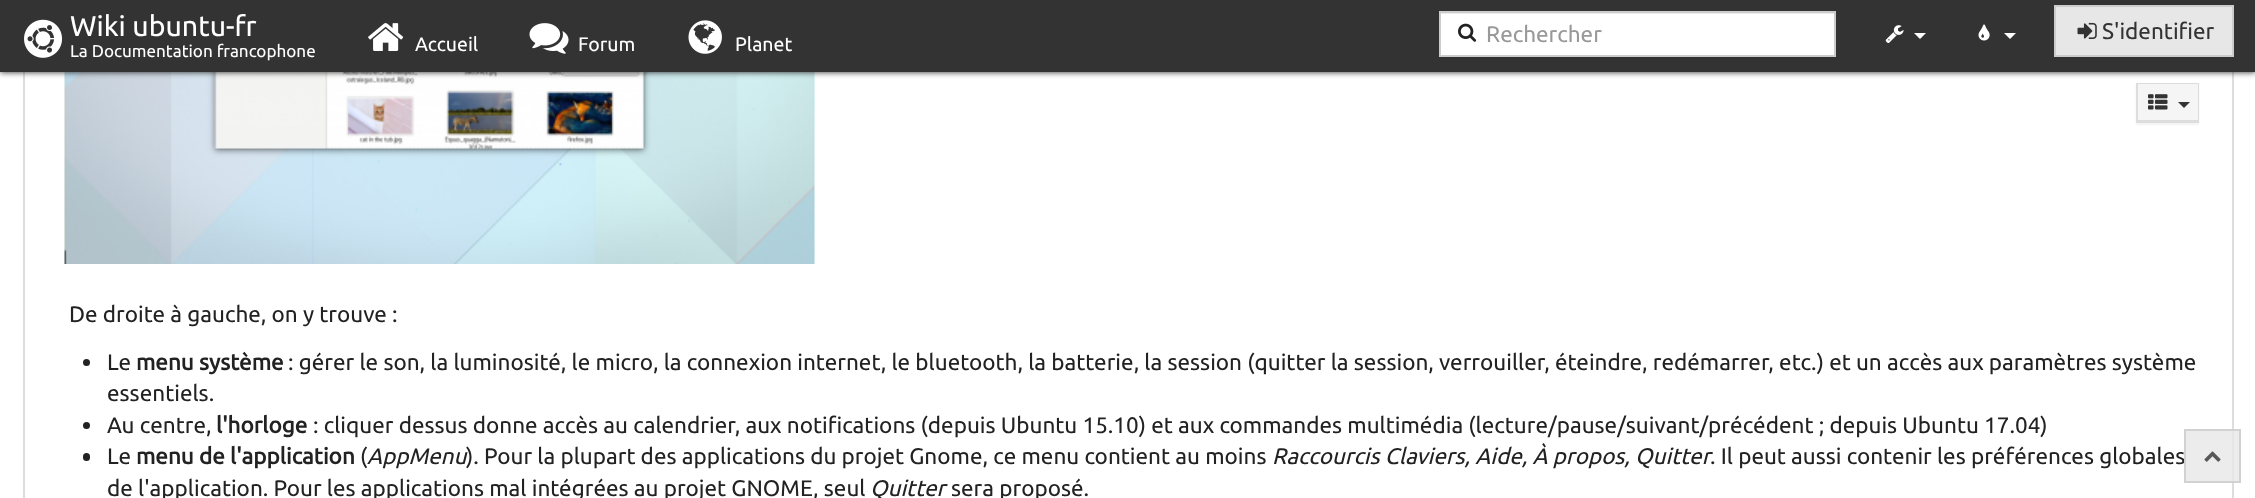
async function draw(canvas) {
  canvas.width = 2255
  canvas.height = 498
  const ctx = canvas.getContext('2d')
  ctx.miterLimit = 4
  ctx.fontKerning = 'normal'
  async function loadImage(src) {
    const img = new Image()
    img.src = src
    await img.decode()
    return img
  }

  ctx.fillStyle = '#fff'
  ctx.fillRect(0, 0, 2255, 498)
  ctx.strokeStyle = '#ddd'
  ctx.lineWidth = 2
  ctx.strokeRect(24, -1, 2209, 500)
  ctx.drawImage(await loadImage('image9.png'), 64, 72, 751, 192)
  ctx.fillStyle = '#222'
  ctx.filter = 'blur(3px)'
  ctx.beginPath()
  ctx.rect(0, 0, 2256, 72)
  ctx.fill()
  ctx.filter = 'none'
  ctx.fillStyle = '#333'
  ctx.fillRect(0, 0, 2255, 72)
  ctx.drawImage(await loadImage('image0.png'), 24, 19, 38, 39)
  ctx.font = '28.5px Ubuntu'
  ctx.fillStyle = '#fff'
  ctx.fillText('Wiki ubuntu-fr', 70, 36)
  ctx.font = '17.1px Ubuntu'
  ctx.fillText('La Documentation francophone', 70, 57)
  ctx.drawImage(await loadImage('image1.png'), 368, 23, 36, 28)
  ctx.font = '19.5px Ubuntu'
  ctx.fillText('Accueil', 415, 51)
  ctx.drawImage(await loadImage('image2.png'), 529, 23, 40, 31)
  ctx.fillText('Forum', 578, 51)
  ctx.drawImage(await loadImage('image3.png'), 688, 20, 34, 34)
  ctx.fillText('Planet', 735, 51)
  ctx.fillRect(1441, 14, 393, 41)
  ctx.fillStyle = '#ececec'
  ctx.fillRect(1440, 13, 395, 1)
  ctx.strokeStyle = '#ccc'
  ctx.strokeRect(1440, 12, 395, 44)
  ctx.drawImage(await loadImage('image4.png'), 1458, 23, 19, 19)
  ctx.font = '22.5px Ubuntu'
  ctx.fillStyle = '#999'
  ctx.fillText('Rechercher', 1486, 42)
  ctx.drawImage(await loadImage('image5.png'), 1885, 25, 19, 18)
  ctx.fillStyle = '#fff'
  ctx.beginPath()
  ctx.moveTo(1914, 33)
  ctx.lineTo(1926, 33)
  ctx.lineTo(1920, 39)
  ctx.closePath()
  ctx.fill()
  ctx.drawImage(await loadImage('image6.png'), 1978, 24, 12, 17)
  ctx.beginPath()
  ctx.moveTo(2004, 33)
  ctx.lineTo(2016, 33)
  ctx.lineTo(2010, 39)
  ctx.closePath()
  ctx.fill()
  ctx.fillStyle = '#e7e7e7'
  ctx.beginPath()
  ctx.rect(2055, 6, 178, 50)
  ctx.fill()
  ctx.stroke()
  ctx.drawImage(await loadImage('image7.png'), 2077, 22, 20, 17)
  ctx.fillStyle = '#333'
  ctx.fillText('S\'identifier', 2102, 39)
  ctx.fillStyle = '#0000000d'
  ctx.filter = 'blur(1px)'
  ctx.beginPath()
  ctx.rect(2136, 84, 63, 41)
  ctx.fill()
  ctx.filter = 'none'
  ctx.strokeStyle = '#ddd'
  ctx.strokeRect(2137, 84, 61, 38)
  ctx.fillStyle = '#f5f5f5'
  ctx.fillRect(2138, 84, 60, 36)
  ctx.fillStyle = '#ddd'
  ctx.fillRect(2138, 120, 60, 1)
  ctx.drawImage(await loadImage('image8.png'), 2148, 94, 20, 16)
  ctx.fillStyle = '#333'
  ctx.beginPath()
  ctx.moveTo(2178, 102)
  ctx.lineTo(2190, 102)
  ctx.lineTo(2184, 108)
  ctx.closePath()
  ctx.fill()
  ctx.fillStyle = '#222'
  ctx.fillText('De droite à gauche, on y trouve :', 69, 322)
  ctx.beginPath()
  ctx.arc(86.5, 362.5, 3.5, 0, 2 * Math.PI)
  ctx.fill()
  ctx.fillText('Le', 107, 370)
  ctx.font = 'bold 22.5px Ubuntu'
  ctx.fillText('menu système', 136, 370)
  ctx.font = '22.5px Ubuntu'
  ctx.fillText(': gérer le son, la luminosité, le micro, la connexion internet, le bluetooth, la batterie, la session (quitter la session, verrouiller, éteindre, redémarrer, etc.) et un accès aux paramètres système', 288, 370)
  ctx.fillText('essentiels.', 107, 401)
  ctx.beginPath()
  ctx.arc(86.5, 425.5, 3.5, 0, 2 * Math.PI)
  ctx.fill()
  ctx.fillText('Au centre,', 107, 433)
  ctx.font = 'bold 22.5px Ubuntu'
  ctx.fillText('l\'horloge', 216, 433)
  ctx.font = '22.5px Ubuntu'
  ctx.fillText(': cliquer dessus donne accès au calendrier, aux notifications (depuis Ubuntu 15.10) et aux commandes multimédia (lecture/pause/suivant/précédent ; depuis Ubuntu 17.04)', 313, 433)
  ctx.beginPath()
  ctx.roundRect(83, 453, 7, 8, 3.5)
  ctx.fill()
  ctx.fillText('Le', 107, 464)
  ctx.font = 'bold 22.5px Ubuntu'
  ctx.fillText('menu de l\'application', 136, 464)
  ctx.font = '22.5px Ubuntu'
  ctx.fillText('(', 360, 464)
  ctx.font = 'italic 22.5px Ubuntu'
  ctx.fillText('AppMenu', 367, 464)
  ctx.font = '22.5px Ubuntu'
  ctx.fillText('). Pour la plupart des applications du projet Gnome, ce menu contient au moins', 466, 464)
  ctx.font = 'italic 22.5px Ubuntu'
  ctx.fillText('Raccourcis Claviers, Aide, À propos, Quitter', 1272, 464)
  ctx.font = '22.5px Ubuntu'
  ctx.fillText('. Il peut aussi contenir les préférences globales', 1710, 464)
  ctx.fillText('de l\'application. Pour les applications mal intégrées au projet GNOME, seul', 107, 496)
  ctx.font = 'italic 22.5px Ubuntu'
  ctx.fillText('Quitter', 870, 496)
  ctx.font = '22.5px Ubuntu'
  ctx.fillText('sera proposé.', 951, 496)
  ctx.fillStyle = '#e7e7e7cc'
  ctx.fillRect(2184, 429, 57, 54)
  ctx.strokeStyle = '#cccccccc'
  ctx.strokeRect(2185, 430, 55, 52)
  ctx.drawImage(await loadImage('image10.png'), 2204, 451, 17, 11)
}

draw(document.querySelector('canvas'))
